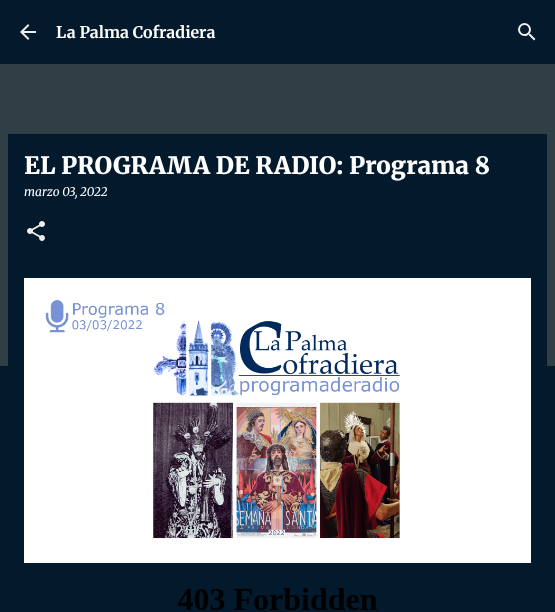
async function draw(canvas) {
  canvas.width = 555
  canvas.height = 612
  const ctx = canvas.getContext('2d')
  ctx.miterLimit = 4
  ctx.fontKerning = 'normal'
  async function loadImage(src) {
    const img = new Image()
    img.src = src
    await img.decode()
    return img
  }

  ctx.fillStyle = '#303f46'
  ctx.fillRect(0, 0, 555, 612)
  ctx.fillStyle = '#03192c'
  ctx.fillRect(0, 0, 555, 64)
  ctx.drawImage(await loadImage('image0.png'), 20, 24, 16, 16)
  ctx.font = 'bold 16px Merriweather'
  ctx.fillStyle = '#fff'
  ctx.fillText('La Palma Cofradiera', 56, 38)
  ctx.drawImage(await loadImage('image1.png'), 518, 23, 18, 18)
  ctx.fillStyle = '#03192c'
  ctx.fillRect(0, 366, 555, 246)
  ctx.fillRect(8, 134, 539, 232)
  ctx.font = '900 24px Merriweather'
  ctx.fillStyle = '#fff'
  ctx.fillText('EL PROGRAMA DE RADIO: Programa 8', 24, 174)
  ctx.font = 'italic 12px Merriweather'
  ctx.fillText('marzo 03, 2022', 24, 196)
  ctx.drawImage(await loadImage('image2.png'), 27, 221, 18, 20)
  ctx.drawImage(await loadImage('image3.png'), 24, 278, 507, 285)
  ctx.drawImage(await loadImage('image4.png'), 178, 588, 199, 22)
}

draw(document.querySelector('canvas'))
